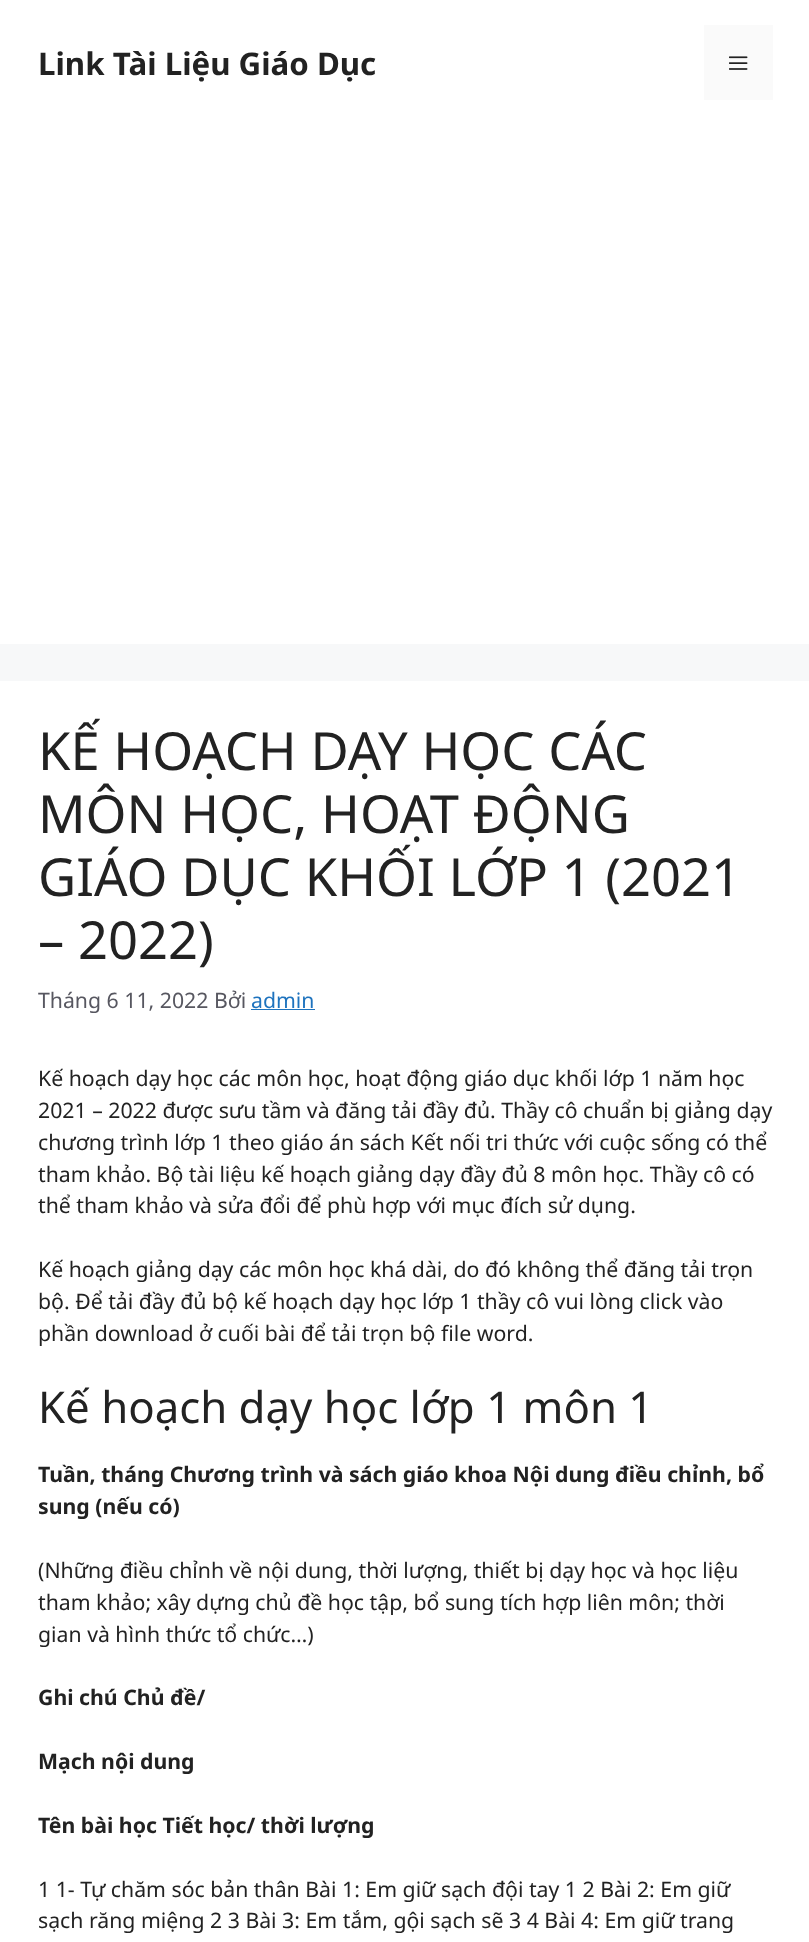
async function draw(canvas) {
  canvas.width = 809
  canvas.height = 1942
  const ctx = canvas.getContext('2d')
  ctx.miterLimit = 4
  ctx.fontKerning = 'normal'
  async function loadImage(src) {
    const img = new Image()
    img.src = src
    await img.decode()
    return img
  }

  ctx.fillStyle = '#f7f8f9'
  ctx.fillRect(0, 0, 809, 1942)
  ctx.fillStyle = '#fff'
  ctx.fillRect(0, 0, 809, 644)
  ctx.font = 'bold 31.25px Noto Sans'
  ctx.fillStyle = '#222'
  ctx.fillText('Link Tài Liệu Giáo Dục', 38, 75)
  ctx.fillStyle = '#fafafa'
  ctx.fillRect(704, 25, 69, 75)
  ctx.drawImage(await loadImage('image0.png'), 729, 56, 19, 14)
  ctx.fillStyle = '#fff'
  ctx.fillRect(0, 681, 809, 1261)
  ctx.font = '52.5px Noto Sans'
  ctx.fillStyle = '#222'
  ctx.fillText('KẾ HOẠCH DẠY HỌC CÁC', 38, 770)
  ctx.fillText('MÔN HỌC, HOẠT ĐỘNG', 38, 833)
  ctx.fillText('GIÁO DỤC KHỐI LỚP 1 (2021', 38, 896)
  ctx.fillText('– 2022)', 38, 959)
  ctx.font = '21.25px Noto Sans'
  ctx.fillStyle = '#575760'
  ctx.fillText('Tháng 6 11, 2022 Bởi', 38, 1008)
  ctx.fillStyle = '#1e73be'
  ctx.fillText('admin', 251, 1008)
  ctx.fillRect(251, 1009, 64, 1)
  ctx.fillStyle = '#222'
  ctx.fillText('Kế hoạch dạy học các môn học, hoạt động giáo dục khối lớp 1 năm học', 38, 1086)
  ctx.fillText('2021 – 2022 được sưu tầm và đăng tải đầy đủ. Thầy cô chuẩn bị giảng dạy', 38, 1118)
  ctx.fillText('chương trình lớp 1 theo giáo án sách Kết nối tri thức với cuộc sống có thể', 38, 1150)
  ctx.fillText('tham khảo. Bộ tài liệu kế hoạch giảng dạy đầy đủ 8 môn học. Thầy cô có', 38, 1182)
  ctx.fillText('thể tham khảo và sửa đổi để phù hợp với mục đích sử dụng.', 38, 1213)
  ctx.fillText('Kế hoạch giảng dạy các môn học khá dài, do đó không thể đăng tải trọn', 38, 1277)
  ctx.fillText('bộ. Để tải đầy đủ bộ kế hoạch dạy học lớp 1 thầy cô vui lòng click vào', 38, 1309)
  ctx.fillText('phần download ở cuối bài để tải trọn bộ file word.', 38, 1341)
  ctx.font = '43.75px Noto Sans'
  ctx.fillText('Kế hoạch dạy học lớp 1 môn 1', 38, 1423)
  ctx.font = 'bold 21.25px Noto Sans'
  ctx.fillText('Tuần, tháng Chương trình và sách giáo khoa Nội dung điều chỉnh, bổ', 38, 1482)
  ctx.fillText('sung (nếu có)', 38, 1514)
  ctx.font = '21.25px Noto Sans'
  ctx.fillText('(Những điều chỉnh về nội dung, thời lượng, thiết bị dạy học và học liệu', 38, 1578)
  ctx.fillText('tham khảo; xây dựng chủ đề học tập, bổ sung tích hợp liên môn; thời', 38, 1610)
  ctx.fillText('gian và hình thức tổ chức…)', 38, 1642)
  ctx.font = 'bold 21.25px Noto Sans'
  ctx.fillText('Ghi chú Chủ đề/', 38, 1705)
  ctx.fillText('Mạch nội dung', 38, 1769)
  ctx.fillText('Tên bài học Tiết học/ thời lượng', 38, 1833)
  ctx.font = '21.25px Noto Sans'
  ctx.fillText('1 1- Tự chăm sóc bản thân Bài 1: Em giữ sạch đội tay 1 2 Bài 2: Em giữ', 38, 1897)
  ctx.fillText('sạch răng miệng 2 3 Bài 3: Em tắm, gội sạch sẽ 3 4 Bài 4: Em giữ trang', 38, 1928)
}

draw(document.querySelector('canvas'))
